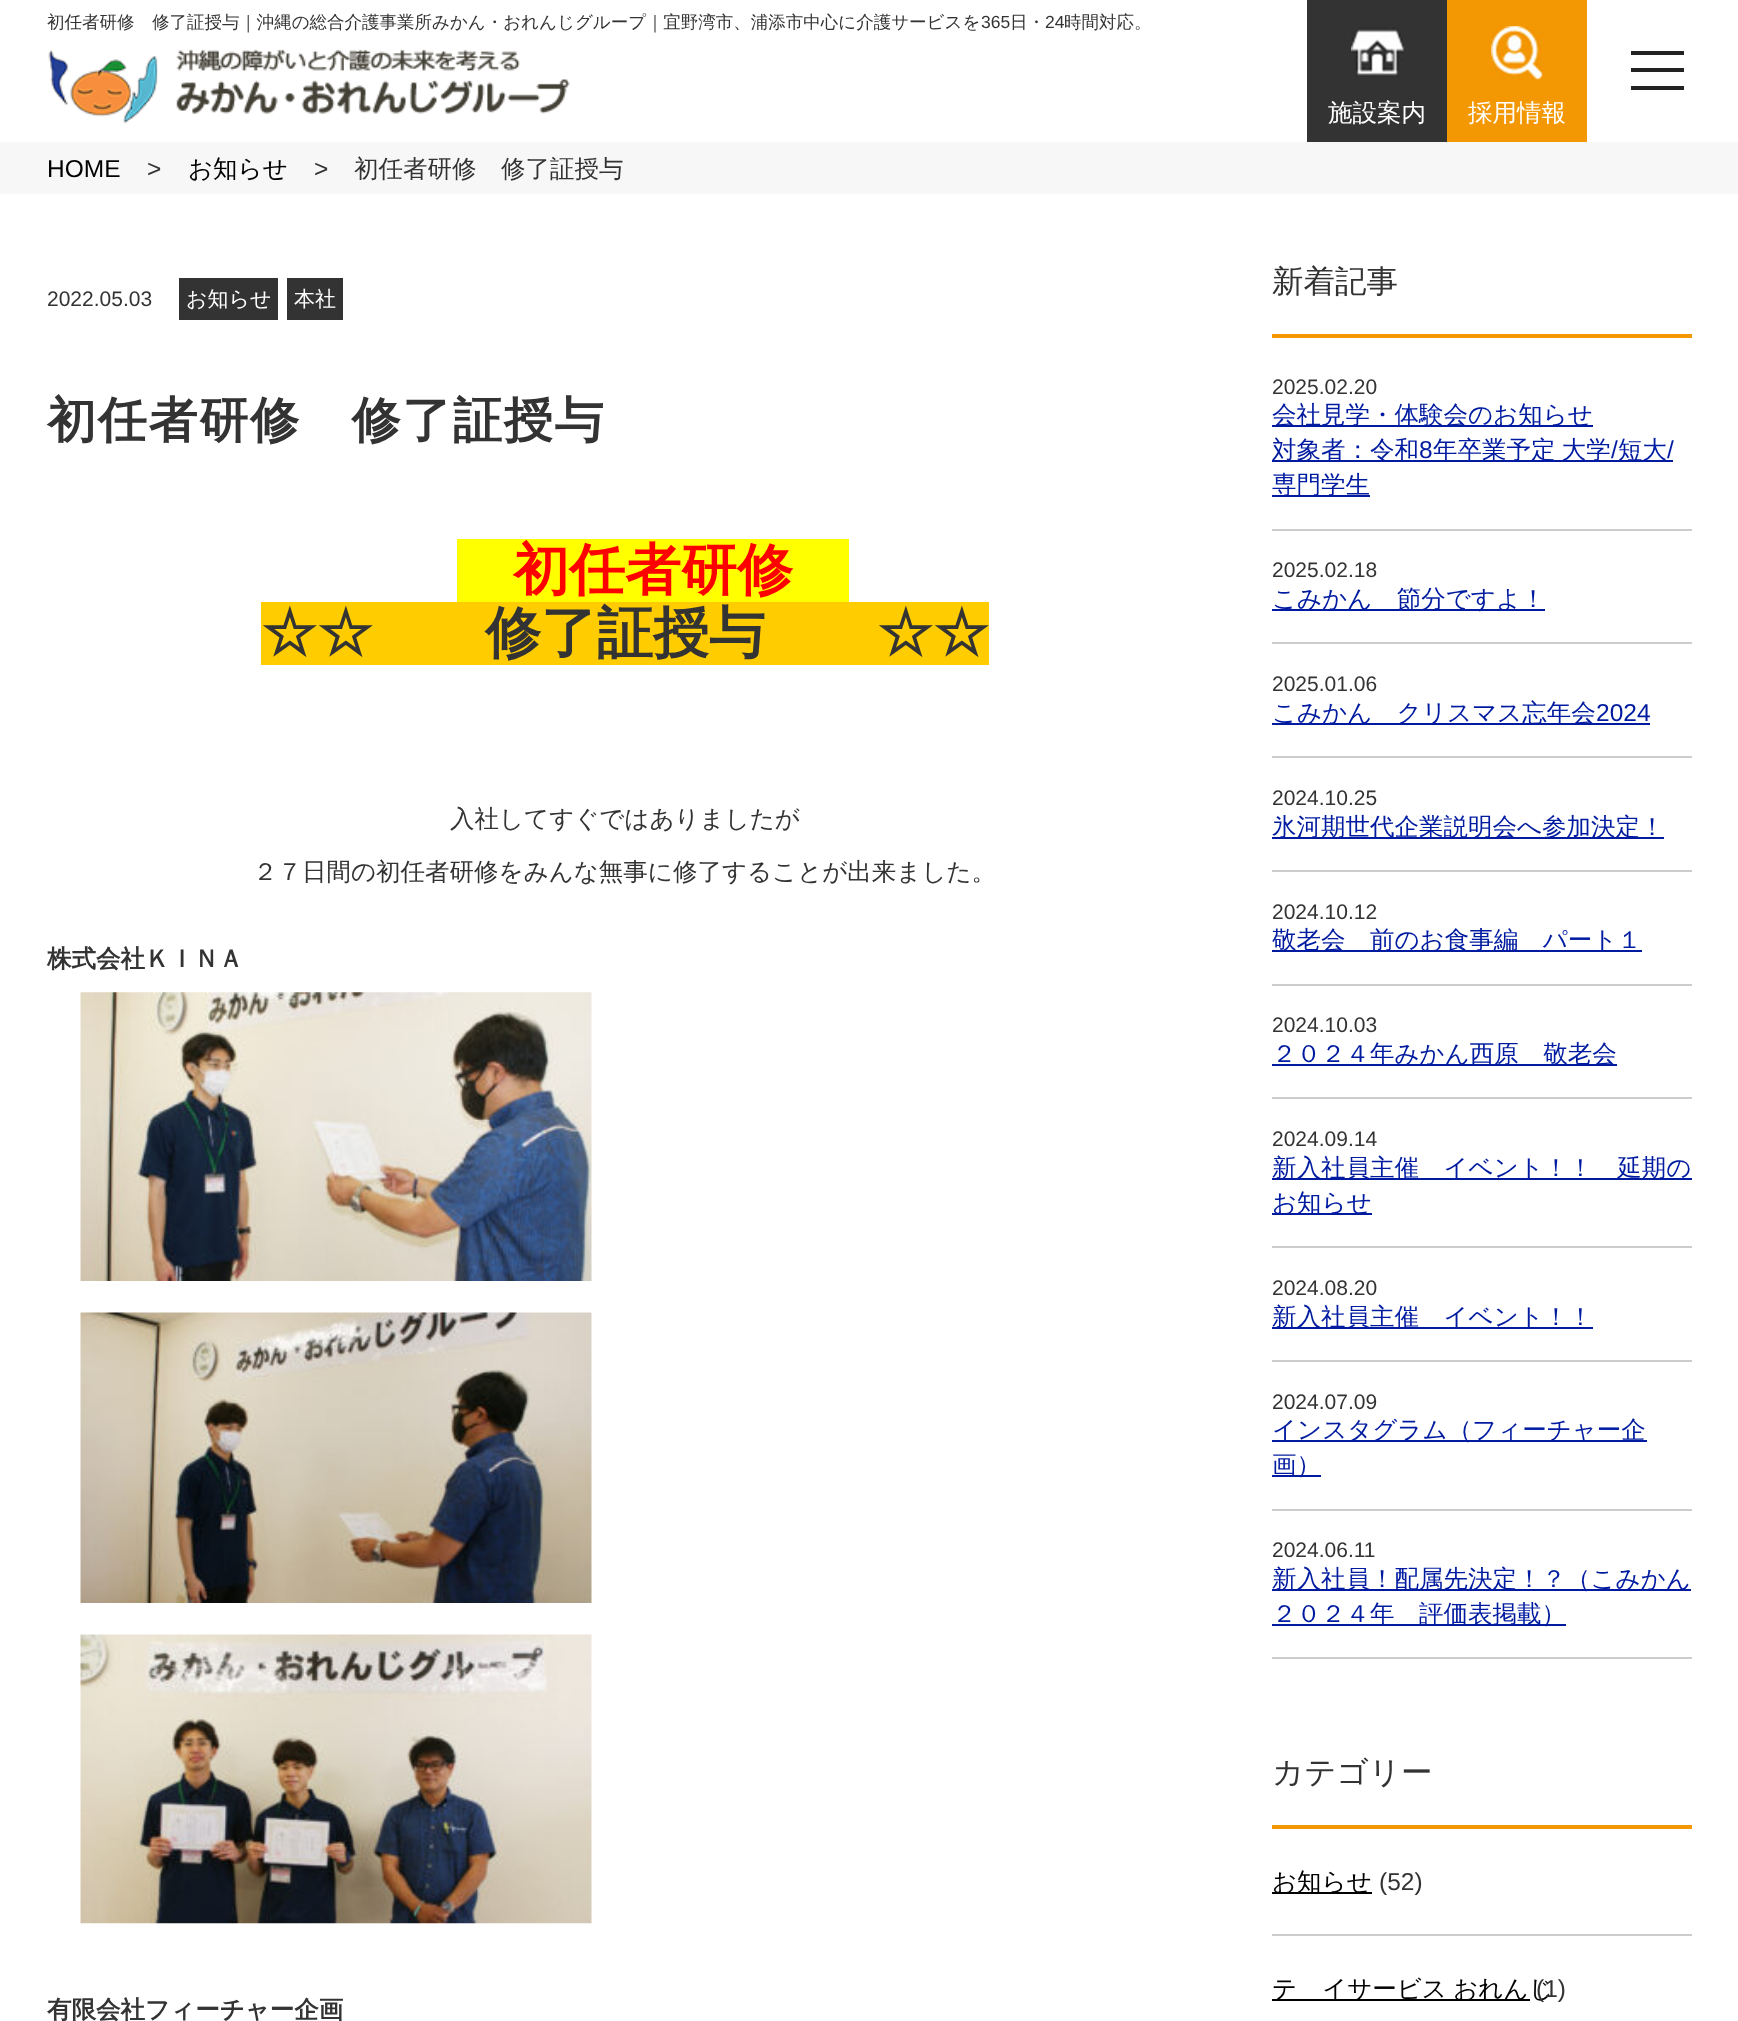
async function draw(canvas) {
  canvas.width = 1738
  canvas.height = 2021
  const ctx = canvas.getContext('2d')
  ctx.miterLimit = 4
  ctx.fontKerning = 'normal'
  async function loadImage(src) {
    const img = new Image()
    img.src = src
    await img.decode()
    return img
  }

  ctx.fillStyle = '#fff'
  ctx.fillRect(0, 0, 1738, 2021)
  ctx.font = '500 17.5px WenQuanYi Zen Hei'
  ctx.fillStyle = '#333'
  ctx.fillText('初任者研修　修了証授与｜沖縄の総合介護事業所みかん・おれんじグループ｜宜野湾市、浦添市中心に介護サービスを', 47, 28)
  ctx.font = '17.5px Liberation Sans'
  ctx.fillText('365', 981, 28)
  ctx.font = '500 17.5px WenQuanYi Zen Hei'
  ctx.fillText('日・', 1010, 28)
  ctx.font = '17.5px Liberation Sans'
  ctx.fillText('24', 1045, 28)
  ctx.font = '500 17.5px WenQuanYi Zen Hei'
  ctx.fillText('時間対応。', 1064, 28)
  ctx.drawImage(await loadImage('image0.png'), 48, 49, 522, 75)
  ctx.fillStyle = '#222'
  ctx.fillRect(1631, 68, 53, 4)
  ctx.fillRect(1631, 51, 53, 4)
  ctx.fillRect(1631, 86, 53, 4)
  ctx.fillStyle = '#333'
  ctx.fillRect(1307, 0, 140, 142)
  ctx.drawImage(await loadImage('image1.png'), 1351, 27, 53, 50)
  ctx.font = '500 24.5px WenQuanYi Zen Hei'
  ctx.fillStyle = '#fff'
  ctx.fillText('施設案内', 1328, 121)
  ctx.fillStyle = '#f39803'
  ctx.fillRect(1447, 0, 140, 142)
  ctx.drawImage(await loadImage('image2.png'), 1491, 26, 53, 55)
  ctx.fillStyle = '#fff'
  ctx.fillText('採用情報', 1468, 121)
  ctx.fillStyle = '#f7f7f7'
  ctx.fillRect(0, 142, 1738, 52)
  ctx.font = '24.5px Liberation Sans'
  ctx.fillStyle = '#000'
  ctx.fillText('HOME', 47, 177)
  ctx.fillStyle = '#333'
  ctx.fillText('>', 147, 177)
  ctx.font = '500 24.5px WenQuanYi Zen Hei'
  ctx.fillStyle = '#000'
  ctx.fillText('お知らせ', 188, 177)
  ctx.font = '24.5px Liberation Sans'
  ctx.fillStyle = '#333'
  ctx.fillText('>', 314, 177)
  ctx.font = '500 24.5px WenQuanYi Zen Hei'
  ctx.fillText('初任者研修　修了証授与', 354, 177)
  ctx.font = '21px Liberation Sans'
  ctx.fillText('2022.05.03', 47, 306)
  ctx.fillRect(179, 278, 99, 42)
  ctx.font = '500 21px WenQuanYi Zen Hei'
  ctx.fillStyle = '#fff'
  ctx.fillText('お知らせ', 186, 306)
  ctx.fillStyle = '#333'
  ctx.fillRect(287, 278, 56, 42)
  ctx.fillStyle = '#fff'
  ctx.fillText('本社', 294, 306)
  ctx.letterSpacing = '1.75px'
  ctx.font = 'bold 49px WenQuanYi Zen Hei'
  ctx.fillStyle = '#333'
  ctx.fillText('初任者研修　修了証授与', 47, 437)
  ctx.fillStyle = '#ff0'
  ctx.fillRect(457, 539, 392, 63)
  ctx.letterSpacing = '0px'
  ctx.font = 'bold 56px WenQuanYi Zen Hei'
  ctx.fillStyle = '#f00'
  ctx.fillText('初任者研修', 513, 589)
  ctx.fillStyle = '#fc0'
  ctx.fillRect(261, 602, 728, 63)
  ctx.fillStyle = '#333'
  ctx.fillText('☆☆　　修了証授与　　☆☆', 261, 652)
  ctx.font = '500 24.5px WenQuanYi Zen Hei'
  ctx.fillText('入社してすぐではありましたが', 450, 827)
  ctx.fillText('２７日間の初任者研修をみんな無事に修了することが出来ました。', 253, 880)
  ctx.font = 'bold 24.5px WenQuanYi Zen Hei'
  ctx.fillText('株式会社ＫＩＮＡ', 47, 967)
  ctx.drawImage(await loadImage('image3.png'), 80, 992, 512, 289)
  ctx.drawImage(await loadImage('image4.png'), 80, 1312, 512, 291)
  ctx.drawImage(await loadImage('image5.png'), 80, 1634, 512, 290)
  ctx.fillText('有限会社フィーチャー企画', 47, 2018)
  ctx.fillStyle = '#f39803'
  ctx.fillRect(1272, 334, 420, 4)
  ctx.font = '500 31.5px WenQuanYi Zen Hei'
  ctx.fillStyle = '#333'
  ctx.fillText('新着記事', 1272, 292)
  ctx.font = '21px Liberation Sans'
  ctx.fillText('2025.02.20', 1272, 394)
  ctx.fillStyle = '#ccc'
  ctx.fillRect(1272, 529, 420, 2)
  ctx.fillStyle = '#001ba0'
  ctx.fillRect(1272, 425, 321, 2)
  ctx.font = '500 24.5px WenQuanYi Zen Hei'
  ctx.fillText('会社見学・体験会のお知らせ', 1272, 423)
  ctx.fillRect(1272, 460, 401, 2)
  ctx.fillText('対象者：令和', 1272, 458)
  ctx.font = '24.5px Liberation Sans'
  ctx.fillText('8', 1419, 458)
  ctx.wordSpacing = '-1px'
  ctx.font = '500 24.5px WenQuanYi Zen Hei'
  ctx.fillText('年卒業予定 大学', 1433, 458)
  ctx.wordSpacing = '0px'
  ctx.font = '24.5px Liberation Sans'
  ctx.fillText('/', 1611, 458)
  ctx.font = '500 24.5px WenQuanYi Zen Hei'
  ctx.fillText('短大', 1618, 458)
  ctx.font = '24.5px Liberation Sans'
  ctx.fillText('/', 1667, 458)
  ctx.fillRect(1272, 495, 98, 2)
  ctx.font = '500 24.5px WenQuanYi Zen Hei'
  ctx.fillText('専門学生', 1272, 493)
  ctx.font = '21px Liberation Sans'
  ctx.fillStyle = '#333'
  ctx.fillText('2025.02.18', 1272, 577)
  ctx.fillStyle = '#ccc'
  ctx.fillRect(1272, 642, 420, 2)
  ctx.fillStyle = '#001ba0'
  ctx.fillRect(1272, 609, 273, 2)
  ctx.font = '500 24.5px WenQuanYi Zen Hei'
  ctx.fillText('こみかん　節分ですよ！', 1272, 607)
  ctx.font = '21px Liberation Sans'
  ctx.fillStyle = '#333'
  ctx.fillText('2025.01.06', 1272, 691)
  ctx.fillStyle = '#ccc'
  ctx.fillRect(1272, 756, 420, 2)
  ctx.fillStyle = '#001ba0'
  ctx.fillRect(1272, 723, 378, 2)
  ctx.font = '500 24.5px WenQuanYi Zen Hei'
  ctx.fillText('こみかん　クリスマス忘年会', 1272, 721)
  ctx.font = '24.5px Liberation Sans'
  ctx.fillText('2024', 1596, 721)
  ctx.font = '21px Liberation Sans'
  ctx.fillStyle = '#333'
  ctx.fillText('2024.10.25', 1272, 805)
  ctx.fillStyle = '#ccc'
  ctx.fillRect(1272, 870, 420, 2)
  ctx.fillStyle = '#001ba0'
  ctx.fillRect(1272, 837, 392, 2)
  ctx.font = '500 24.5px WenQuanYi Zen Hei'
  ctx.fillText('氷河期世代企業説明会へ参加決定！', 1272, 835)
  ctx.font = '21px Liberation Sans'
  ctx.fillStyle = '#333'
  ctx.fillText('2024.10.12', 1272, 919)
  ctx.fillStyle = '#ccc'
  ctx.fillRect(1272, 984, 420, 2)
  ctx.fillStyle = '#001ba0'
  ctx.fillRect(1272, 950, 370, 2)
  ctx.font = '500 24.5px WenQuanYi Zen Hei'
  ctx.fillText('敬老会　前のお食事編　パート１', 1272, 948)
  ctx.font = '21px Liberation Sans'
  ctx.fillStyle = '#333'
  ctx.fillText('2024.10.03', 1272, 1032)
  ctx.fillStyle = '#ccc'
  ctx.fillRect(1272, 1097, 420, 2)
  ctx.fillStyle = '#001ba0'
  ctx.fillRect(1272, 1064, 345, 2)
  ctx.font = '500 24.5px WenQuanYi Zen Hei'
  ctx.fillText('２０２４年みかん西原　敬老会', 1272, 1062)
  ctx.font = '21px Liberation Sans'
  ctx.fillStyle = '#333'
  ctx.fillText('2024.09.14', 1272, 1146)
  ctx.fillStyle = '#ccc'
  ctx.fillRect(1272, 1246, 420, 2)
  ctx.fillStyle = '#001ba0'
  ctx.fillRect(1272, 1178, 420, 2)
  ctx.font = '500 24.5px WenQuanYi Zen Hei'
  ctx.fillText('新入社員主催　イベント！！　延期の', 1272, 1176)
  ctx.fillRect(1272, 1213, 100, 2)
  ctx.fillText('お知らせ', 1272, 1211)
  ctx.font = '21px Liberation Sans'
  ctx.fillStyle = '#333'
  ctx.fillText('2024.08.20', 1272, 1295)
  ctx.fillStyle = '#ccc'
  ctx.fillRect(1272, 1360, 420, 2)
  ctx.fillStyle = '#001ba0'
  ctx.fillRect(1272, 1327, 321, 2)
  ctx.font = '500 24.5px WenQuanYi Zen Hei'
  ctx.fillText('新入社員主催　イベント！！', 1272, 1325)
  ctx.font = '21px Liberation Sans'
  ctx.fillStyle = '#333'
  ctx.fillText('2024.07.09', 1272, 1409)
  ctx.fillStyle = '#ccc'
  ctx.fillRect(1272, 1509, 420, 2)
  ctx.fillStyle = '#001ba0'
  ctx.fillRect(1272, 1440, 375, 2)
  ctx.font = '500 24.5px WenQuanYi Zen Hei'
  ctx.fillText('インスタグラム（フィーチャー企', 1272, 1438)
  ctx.fillRect(1272, 1475, 49, 2)
  ctx.fillText('画）', 1272, 1473)
  ctx.font = '21px Liberation Sans'
  ctx.fillStyle = '#333'
  ctx.fillText('2024.06.11', 1272, 1557)
  ctx.fillStyle = '#ccc'
  ctx.fillRect(1272, 1657, 420, 2)
  ctx.fillStyle = '#001ba0'
  ctx.fillRect(1272, 1589, 419, 2)
  ctx.font = '500 24.5px WenQuanYi Zen Hei'
  ctx.fillText('新入社員！配属先決定！？（こみかん', 1272, 1587)
  ctx.fillRect(1272, 1624, 294, 2)
  ctx.fillText('２０２４年　評価表掲載）', 1272, 1622)
  ctx.fillStyle = '#f39803'
  ctx.fillRect(1272, 1825, 420, 4)
  ctx.font = '500 31.5px WenQuanYi Zen Hei'
  ctx.fillStyle = '#333'
  ctx.fillText('カテゴリー', 1272, 1783)
  ctx.fillStyle = '#ccc'
  ctx.fillRect(1272, 1934, 420, 2)
  ctx.fillStyle = '#000'
  ctx.fillRect(1272, 1892, 100, 2)
  ctx.font = '500 24.5px WenQuanYi Zen Hei'
  ctx.fillText('お知らせ', 1272, 1890)
  ctx.font = '24.5px Liberation Sans'
  ctx.fillStyle = '#333'
  ctx.fillText('(52)', 1379, 1890)
  ctx.fillStyle = '#000'
  ctx.fillRect(1272, 1999, 258, 2)
  ctx.wordSpacing = '-1px'
  ctx.font = '500 24.5px WenQuanYi Zen Hei'
  ctx.fillText('デイサービス おれんじ', 1272, 1997)
  ctx.wordSpacing = '0px'
  ctx.font = '24.5px Liberation Sans'
  ctx.fillStyle = '#333'
  ctx.fillText('(1)', 1536, 1997)
}

draw(document.querySelector('canvas'))
